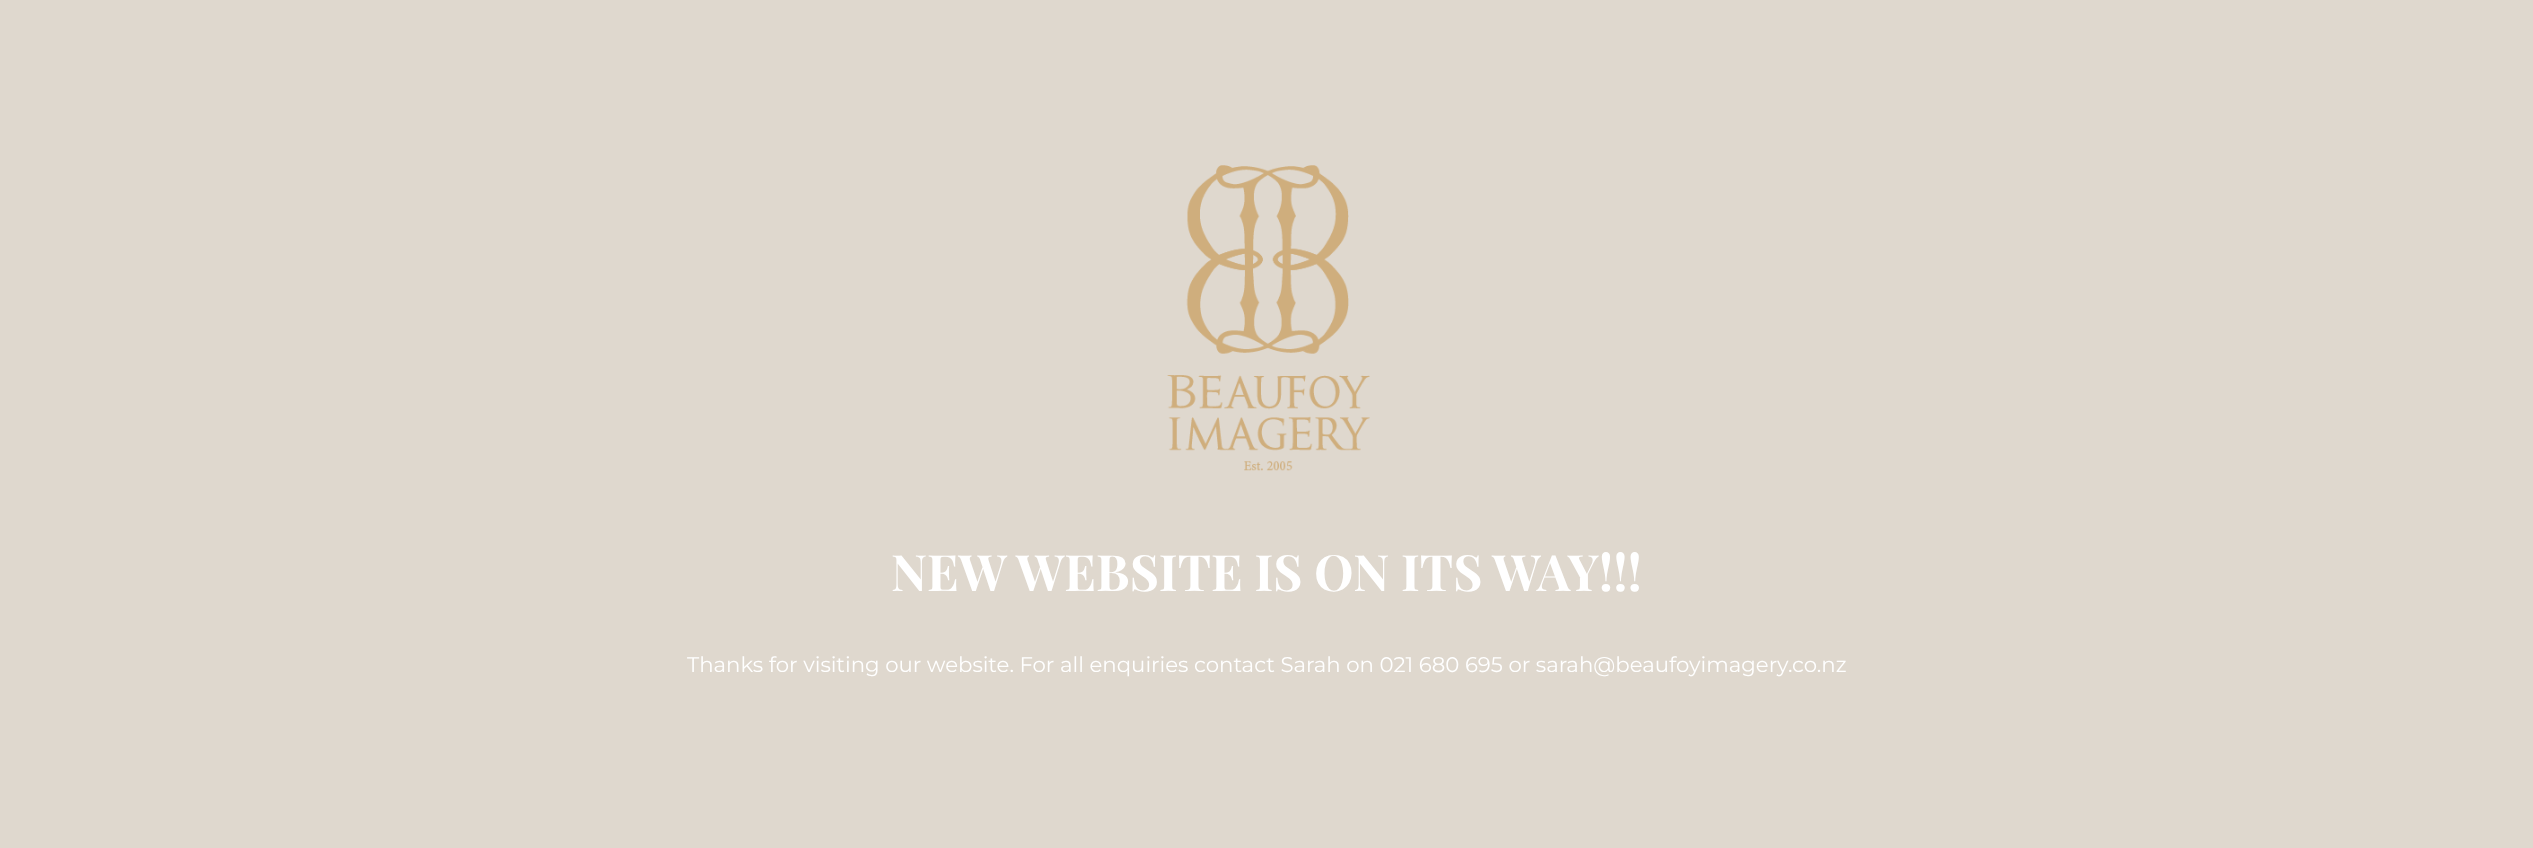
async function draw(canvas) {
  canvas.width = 2533
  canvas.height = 848
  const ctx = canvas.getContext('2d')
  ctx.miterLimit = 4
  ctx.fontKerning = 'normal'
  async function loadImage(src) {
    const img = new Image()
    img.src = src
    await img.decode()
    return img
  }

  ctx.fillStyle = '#dfd8ce'
  ctx.fillRect(0, 0, 2533, 848)
  ctx.drawImage(await loadImage('image0.png'), 1167, 165, 203, 306)
  ctx.font = 'bold 50px Playfair Display'
  ctx.fillStyle = '#fff'
  ctx.fillText('NEW WEBSITE IS ON ITS WAY!!!', 891, 591)
  ctx.font = '21.25px Montserrat'
  ctx.fillText('Thanks for visiting our website. For all enquiries contact Sarah on 021 680 695 or sarah@beaufoyimagery.co.nz', 687, 672)
}

draw(document.querySelector('canvas'))
